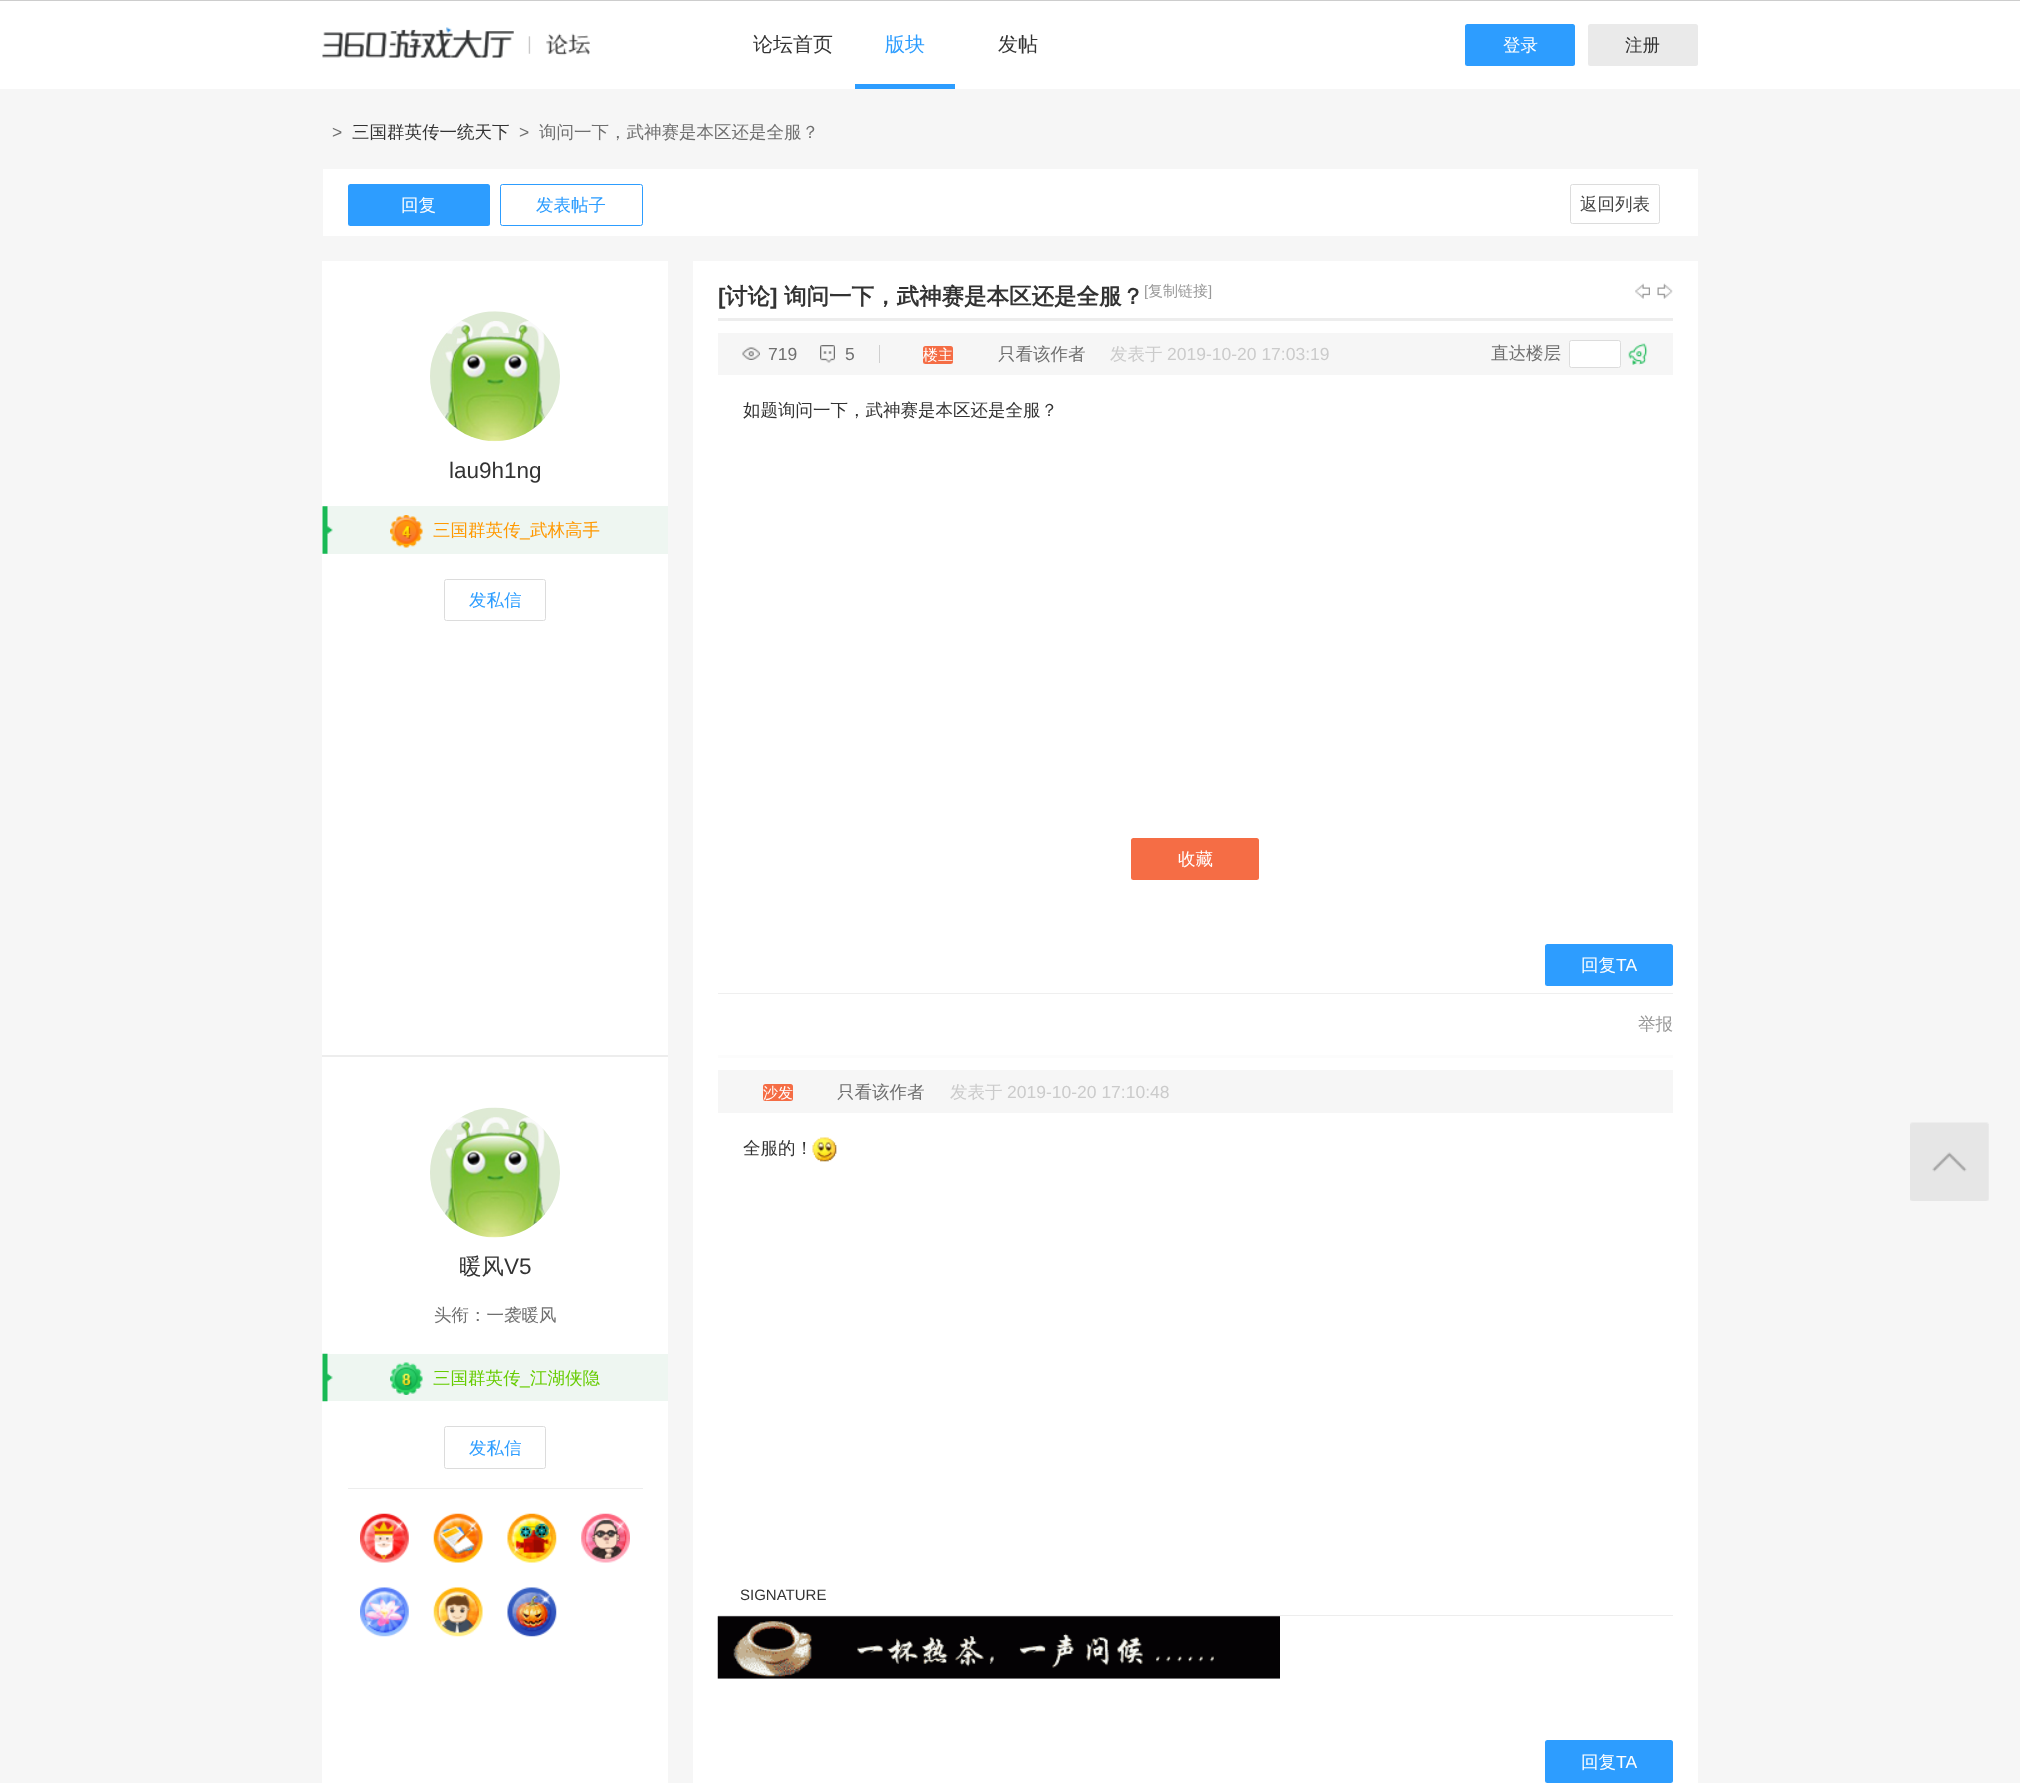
async function draw(canvas) {
  canvas.width = 2020
  canvas.height = 1783
  const ctx = canvas.getContext('2d')
  ctx.miterLimit = 4
  ctx.fontKerning = 'normal'
  async function loadImage(src) {
    const img = new Image()
    img.src = src
    await img.decode()
    return img
  }

  ctx.fillStyle = '#cdcdcd'
  ctx.fillRect(0, 0, 2020, 1783)
  ctx.fillStyle = '#fff'
  ctx.fillRect(0, 1, 2020, 88)
  ctx.drawImage(await loadImage('image0.png'), 322, 27, 268, 31)
  ctx.font = '500 20px WenQuanYi Zen Hei'
  ctx.fillStyle = '#333'
  ctx.fillText('论坛首页', 753, 51)
  ctx.fillStyle = '#2d9dff'
  ctx.fillRect(855, 84, 100, 5)
  ctx.fillText('版块', 885, 51)
  ctx.fillStyle = '#333'
  ctx.fillText('发帖', 998, 51)
  ctx.fillStyle = '#2d9dff'
  ctx.beginPath()
  ctx.roundRect(1465, 24, 110, 42, 2.5)
  ctx.fill()
  ctx.font = '500 17.5px WenQuanYi Zen Hei'
  ctx.fillStyle = '#fff'
  ctx.fillText('登录', 1503, 51)
  ctx.fillStyle = '#eaeaea'
  ctx.beginPath()
  ctx.roundRect(1588, 24, 110, 42, 2.5)
  ctx.fill()
  ctx.fillStyle = '#333'
  ctx.fillText('注册', 1625, 51)
  ctx.fillStyle = '#f6f6f6'
  ctx.fillRect(0, 89, 2020, 1694)
  ctx.font = '17.5px Liberation Sans'
  ctx.fillStyle = '#6f6f6f'
  ctx.fillText('>', 332, 138)
  ctx.font = '500 17.5px WenQuanYi Zen Hei'
  ctx.fillStyle = '#333'
  ctx.fillText('三国群英传一统天下', 352, 138)
  ctx.font = '17.5px Liberation Sans'
  ctx.fillStyle = '#6f6f6f'
  ctx.fillText('>', 519, 138)
  ctx.font = '500 17.5px WenQuanYi Zen Hei'
  ctx.fillText('询问一下，武神赛是本区还是全服？', 539, 138)
  ctx.fillStyle = '#fff'
  ctx.fillRect(323, 169, 1375, 67)
  ctx.fillStyle = '#2d9dff'
  ctx.beginPath()
  ctx.roundRect(348, 184, 142, 42, 2.5)
  ctx.fill()
  ctx.fillStyle = '#fff'
  ctx.fillText('回复', 401, 211)
  ctx.beginPath()
  ctx.roundRect(500.5, 184.5, 142, 41, 2)
  ctx.strokeStyle = '#2d9dff'
  ctx.stroke()
  ctx.fillStyle = '#2d9dff'
  ctx.fillText('发表帖子', 536, 211)
  ctx.beginPath()
  ctx.roundRect(1570.5, 184.5, 89, 39, 2)
  ctx.strokeStyle = '#dcdcdc'
  ctx.stroke()
  ctx.fillStyle = '#444'
  ctx.fillText('返回列表', 1580, 210)
  ctx.fillStyle = '#fff'
  ctx.fillRect(322, 261, 346, 794)
  ctx.fillStyle = '#ededed'
  ctx.fillRect(322, 1055, 346, 2)
  ctx.drawImage(await loadImage('image1.png'), 430, 311, 130, 131)
  ctx.font = '22.5px Liberation Sans'
  ctx.fillStyle = '#333'
  ctx.fillText('lau9h1ng', 449, 478)
  ctx.fillStyle = '#eef6f1'
  ctx.fillRect(323, 506, 345, 48)
  ctx.drawImage(await loadImage('image2.png'), 322, 506, 11, 48)
  ctx.drawImage(await loadImage('image3.png'), 390, 515, 33, 33)
  ctx.font = '500 17.5px WenQuanYi Zen Hei'
  ctx.fillStyle = '#f90'
  ctx.fillText('三国群英传', 433, 536)
  ctx.font = '17.5px Liberation Sans'
  ctx.fillText('_', 520, 536)
  ctx.font = '500 17.5px WenQuanYi Zen Hei'
  ctx.fillText('武林高手', 530, 536)
  ctx.beginPath()
  ctx.roundRect(444.5, 579.5, 101, 41, 2)
  ctx.stroke()
  ctx.fillStyle = '#2d9dff'
  ctx.fillText('发私信', 469, 606)
  ctx.fillStyle = '#fff'
  ctx.fillRect(693, 261, 1005, 1522)
  ctx.fillStyle = '#ededed'
  ctx.fillRect(718, 318, 955, 3)
  ctx.font = 'bold 22.5px Liberation Sans'
  ctx.fillStyle = '#333'
  ctx.fillText('[', 718, 304)
  ctx.font = 'bold 22.5px WenQuanYi Zen Hei'
  ctx.fillText('讨论', 725, 304)
  ctx.font = 'bold 22.5px Liberation Sans'
  ctx.fillText(']', 770, 304)
  ctx.font = 'bold 22.5px WenQuanYi Zen Hei'
  ctx.fillText('询问一下，武神赛是本区还是全服？', 784, 304)
  ctx.font = '15px Liberation Sans'
  ctx.fillStyle = '#999'
  ctx.fillText('[', 1144, 296)
  ctx.font = '500 15px WenQuanYi Zen Hei'
  ctx.fillText('复制链接', 1148, 296)
  ctx.font = '15px Liberation Sans'
  ctx.fillText(']', 1208, 296)
  ctx.drawImage(await loadImage('image4.png'), 1635, 283, 15, 16)
  ctx.drawImage(await loadImage('image5.png'), 1657, 283, 16, 16)
  ctx.fillStyle = '#f6f6f6'
  ctx.fillRect(718, 333, 955, 42)
  ctx.drawImage(await loadImage('image6.png'), 742, 347, 18, 13)
  ctx.font = '17.5px Liberation Sans'
  ctx.fillStyle = '#6f6f6f'
  ctx.fillText('719', 768, 360)
  ctx.drawImage(await loadImage('image7.png'), 820, 345, 15, 18)
  ctx.fillStyle = '#cfcfcf'
  ctx.fillRect(879, 345, 1, 18)
  ctx.fillStyle = '#6f6f6f'
  ctx.fillText('5', 845, 360)
  ctx.fillStyle = '#f56d45'
  ctx.beginPath()
  ctx.roundRect(923, 346, 30, 18, 2.5)
  ctx.fill()
  ctx.font = '500 15px WenQuanYi Zen Hei'
  ctx.fillStyle = '#fff'
  ctx.fillText('楼主', 923, 360)
  ctx.font = '500 17.5px WenQuanYi Zen Hei'
  ctx.fillStyle = '#6f6f6f'
  ctx.fillText('只看该作者', 998, 360)
  ctx.fillStyle = '#cbcbcb'
  ctx.fillText('发表于', 1110, 360)
  ctx.font = '17.5px Liberation Sans'
  ctx.fillText('2019-10-20 17:03:19', 1167, 360)
  ctx.font = '500 17.5px WenQuanYi Zen Hei'
  ctx.fillStyle = '#6f6f6f'
  ctx.fillText('直达楼层', 1491, 359)
  ctx.fillStyle = '#fff'
  ctx.beginPath()
  ctx.roundRect(1569.5, 340.5, 51, 27, 2)
  ctx.fill()
  ctx.stroke()
  ctx.drawImage(await loadImage('image8.png'), 1628, 343, 20, 22)
  ctx.fillStyle = '#333'
  ctx.fillText('如题询问一下，武神赛是本区还是全服？', 743, 416)
  ctx.fillStyle = '#f56d45'
  ctx.beginPath()
  ctx.roundRect(1131, 838, 128, 42, 2.5)
  ctx.fill()
  ctx.fillStyle = '#fff'
  ctx.fillText('收藏', 1178, 865)
  ctx.fillStyle = '#2d9dff'
  ctx.beginPath()
  ctx.roundRect(1545, 944, 128, 42, 2.5)
  ctx.fill()
  ctx.fillStyle = '#fff'
  ctx.fillText('回复', 1581, 971)
  ctx.font = '17.5px Liberation Sans'
  ctx.fillText('TA', 1616, 971)
  ctx.fillStyle = '#efefef'
  ctx.fillRect(718, 993, 955, 1)
  ctx.fillStyle = '#fcfcfc'
  ctx.fillRect(718, 1055, 955, 3)
  ctx.font = '500 17.5px WenQuanYi Zen Hei'
  ctx.fillStyle = '#999'
  ctx.fillText('举报', 1638, 1030)
  ctx.fillStyle = '#fff'
  ctx.fillRect(322, 1057, 346, 726)
  ctx.drawImage(await loadImage('image9.png'), 430, 1107, 130, 131)
  ctx.font = '500 22.5px WenQuanYi Zen Hei'
  ctx.fillStyle = '#333'
  ctx.fillText('暖风', 459, 1274)
  ctx.font = '22.5px Liberation Sans'
  ctx.fillText('V5', 504, 1274)
  ctx.font = '500 17.5px WenQuanYi Zen Hei'
  ctx.fillStyle = '#6f6f6f'
  ctx.fillText('头衔：一袭暖风', 434, 1321)
  ctx.fillStyle = '#eef6f1'
  ctx.fillRect(327, 1354, 341, 47)
  ctx.drawImage(await loadImage('image10.png'), 322, 1353, 11, 49)
  ctx.drawImage(await loadImage('image11.png'), 390, 1362, 33, 33)
  ctx.fillStyle = '#6c0'
  ctx.fillText('三国群英传', 433, 1384)
  ctx.font = '17.5px Liberation Sans'
  ctx.fillText('_', 520, 1384)
  ctx.font = '500 17.5px WenQuanYi Zen Hei'
  ctx.fillText('江湖侠隐', 530, 1384)
  ctx.beginPath()
  ctx.roundRect(444.5, 1426.5, 101, 42, 2)
  ctx.stroke()
  ctx.fillStyle = '#2d9dff'
  ctx.fillText('发私信', 469, 1454)
  ctx.fillStyle = '#ededed'
  ctx.fillRect(348, 1488, 295, 1)
  ctx.drawImage(await loadImage('image12.png'), 360, 1513, 49, 50)
  ctx.drawImage(await loadImage('image13.png'), 433, 1513, 50, 50)
  ctx.drawImage(await loadImage('image14.png'), 507, 1513, 50, 50)
  ctx.drawImage(await loadImage('image15.png'), 581, 1513, 49, 50)
  ctx.drawImage(await loadImage('image16.png'), 360, 1587, 49, 50)
  ctx.drawImage(await loadImage('image17.png'), 433, 1587, 50, 50)
  ctx.drawImage(await loadImage('image18.png'), 507, 1587, 50, 50)
  ctx.fillStyle = '#f6f6f6'
  ctx.fillRect(718, 1070, 955, 43)
  ctx.fillStyle = '#f56d45'
  ctx.beginPath()
  ctx.roundRect(763, 1084, 30, 17, 2.5)
  ctx.fill()
  ctx.font = '500 15px WenQuanYi Zen Hei'
  ctx.fillStyle = '#fff'
  ctx.fillText('沙发', 763, 1098)
  ctx.font = '500 17.5px WenQuanYi Zen Hei'
  ctx.fillStyle = '#6f6f6f'
  ctx.fillText('只看该作者', 837, 1098)
  ctx.fillStyle = '#cbcbcb'
  ctx.fillText('发表于', 950, 1098)
  ctx.font = '17.5px Liberation Sans'
  ctx.fillText('2019-10-20 17:10:48', 1007, 1098)
  ctx.font = '500 17.5px WenQuanYi Zen Hei'
  ctx.fillStyle = '#333'
  ctx.fillText('全服的！', 743, 1154)
  ctx.drawImage(await loadImage('image19.png'), 812, 1137, 25, 25)
  ctx.fillStyle = '#ededed'
  ctx.fillRect(718, 1615, 955, 1)
  ctx.font = '15px Liberation Sans'
  ctx.fillStyle = '#333'
  ctx.fillText('SIGNATURE', 740, 1600)
  ctx.drawImage(await loadImage('image20.png'), 717, 1616, 563, 63)
  ctx.fillStyle = '#2d9dff'
  ctx.beginPath()
  ctx.roundRect(1545, 1740, 128, 43, 2.5)
  ctx.fill()
  ctx.font = '500 17.5px WenQuanYi Zen Hei'
  ctx.fillStyle = '#fff'
  ctx.fillText('回复', 1581, 1768)
  ctx.font = '17.5px Liberation Sans'
  ctx.fillText('TA', 1616, 1768)
  ctx.drawImage(await loadImage('image21.png'), 1910, 1122, 79, 79)
}

draw(document.querySelector('canvas'))
